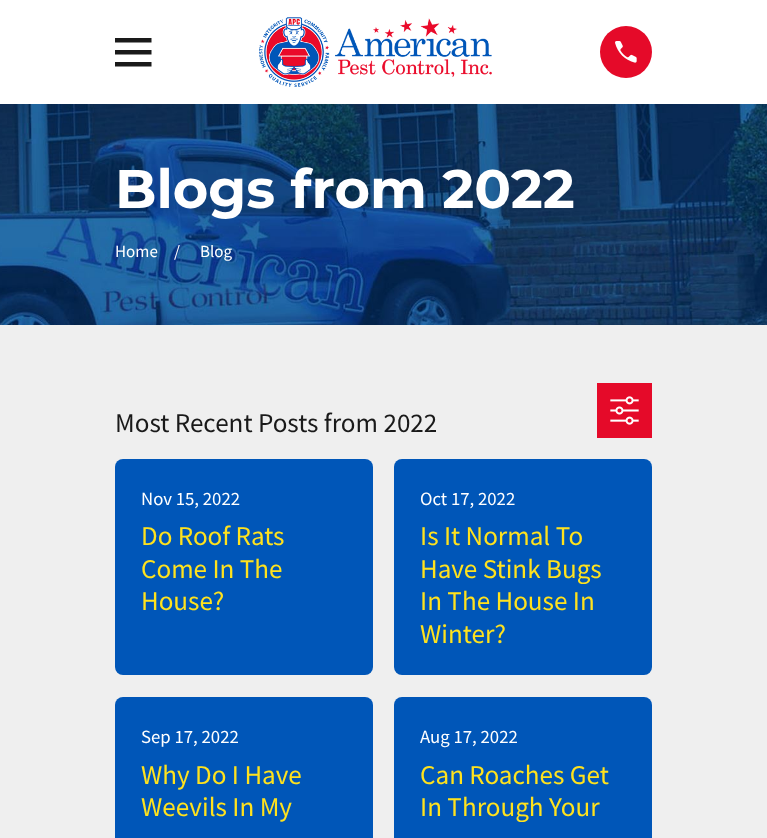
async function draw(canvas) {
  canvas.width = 767
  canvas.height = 838
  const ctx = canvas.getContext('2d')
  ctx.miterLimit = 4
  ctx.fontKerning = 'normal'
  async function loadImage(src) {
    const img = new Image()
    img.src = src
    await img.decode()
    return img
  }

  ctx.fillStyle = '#fff'
  ctx.fillRect(0, 0, 767, 838)
  ctx.fillStyle = '#1a1a1a'
  ctx.beginPath()
  ctx.moveTo(115, 38)
  ctx.lineTo(115, 42.5)
  ctx.lineTo(151.5, 42.5)
  ctx.lineTo(151.5, 38)
  ctx.closePath()
  ctx.moveTo(115, 50)
  ctx.lineTo(115, 54.5)
  ctx.lineTo(151.5, 54.5)
  ctx.lineTo(151.5, 50)
  ctx.closePath()
  ctx.moveTo(115, 62)
  ctx.lineTo(115, 66.5)
  ctx.lineTo(151.5, 66.5)
  ctx.lineTo(151.5, 62)
  ctx.closePath()
  ctx.fill()
  ctx.drawImage(await loadImage('image0.png'), 259, 17, 233, 70)
  ctx.fillStyle = '#e50a29'
  ctx.beginPath()
  ctx.arc(626, 52, 26, 0, 2 * Math.PI)
  ctx.fill()
  ctx.drawImage(await loadImage('image1.png'), 615, 41, 22, 22)
  ctx.drawImage(await loadImage('image2.png'), 0, 104, 767, 221)
  ctx.font = 'bold 54.25px Montserrat'
  ctx.fillStyle = '#fff'
  ctx.fillText('Blogs from 2022', 115, 208)
  ctx.font = '17px Source Sans Pro'
  ctx.fillText('Home', 115, 257)
  ctx.fillText('/', 174, 257)
  ctx.fillText('Blog', 200, 257)
  ctx.fillStyle = '#efefef'
  ctx.fillRect(0, 325, 767, 513)
  ctx.font = '27.1px Source Sans Pro'
  ctx.fillStyle = '#1a1a1a'
  ctx.fillText('Most Recent Posts from 2022', 115, 432)
  ctx.fillStyle = '#e50a29'
  ctx.fillRect(597, 383, 55, 55)
  ctx.drawImage(await loadImage('image3.png'), 610, 396, 29, 29)
  ctx.fillStyle = '#0056b8'
  ctx.beginPath()
  ctx.roundRect(115, 459, 258, 216, 8)
  ctx.fill()
  ctx.font = '18.75px Source Sans Pro'
  ctx.fillStyle = '#fff'
  ctx.fillText('Nov 15, 2022', 141, 505)
  ctx.font = '27.1px Source Sans Pro'
  ctx.fillStyle = '#ffe21d'
  ctx.fillText('Do Roof Rats', 141, 545)
  ctx.fillText('Come In The', 141, 578)
  ctx.fillText('House?', 141, 610)
  ctx.fillStyle = '#0056b8'
  ctx.beginPath()
  ctx.roundRect(394, 459, 258, 216, 8)
  ctx.fill()
  ctx.font = '18.75px Source Sans Pro'
  ctx.fillStyle = '#fff'
  ctx.fillText('Oct 17, 2022', 420, 505)
  ctx.font = '27.1px Source Sans Pro'
  ctx.fillStyle = '#ffe21d'
  ctx.fillText('Is It Normal To', 420, 545)
  ctx.fillText('Have Stink Bugs', 420, 578)
  ctx.fillText('In The House In', 420, 610)
  ctx.fillText('Winter?', 420, 643)
  ctx.fillStyle = '#0056b8'
  ctx.beginPath()
  ctx.roundRect(115, 697, 258, 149, 8)
  ctx.fill()
  ctx.font = '18.75px Source Sans Pro'
  ctx.fillStyle = '#fff'
  ctx.fillText('Sep 17, 2022', 141, 743)
  ctx.font = '27.1px Source Sans Pro'
  ctx.fillStyle = '#ffe21d'
  ctx.fillText('Why Do I Have', 141, 784)
  ctx.fillText('Weevils In My', 141, 816)
  ctx.fillStyle = '#0056b8'
  ctx.beginPath()
  ctx.roundRect(394, 697, 258, 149, 8)
  ctx.fill()
  ctx.font = '18.75px Source Sans Pro'
  ctx.fillStyle = '#fff'
  ctx.fillText('Aug 17, 2022', 420, 743)
  ctx.font = '27.1px Source Sans Pro'
  ctx.fillStyle = '#ffe21d'
  ctx.fillText('Can Roaches Get', 420, 784)
  ctx.fillText('In Through Your', 420, 816)
}

draw(document.querySelector('canvas'))
